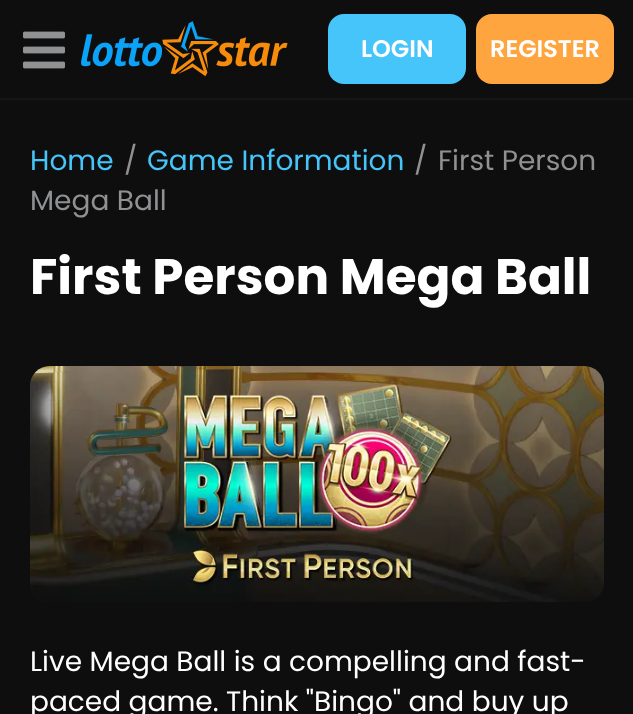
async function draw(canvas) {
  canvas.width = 633
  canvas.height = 714
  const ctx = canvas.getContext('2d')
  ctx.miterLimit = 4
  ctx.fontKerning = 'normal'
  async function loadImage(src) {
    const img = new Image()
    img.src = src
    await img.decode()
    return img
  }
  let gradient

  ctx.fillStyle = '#0e0e0e'
  ctx.fillRect(0, 0, 633, 714)
  ctx.fillStyle = '#151617'
  ctx.fillRect(0, 98, 633, 2)
  ctx.drawImage(await loadImage('image0.png'), 23, 31, 42, 38)
  ctx.drawImage(await loadImage('image1.png'), 81, 21, 207, 56)
  ctx.fillStyle = '#46c5fa'
  ctx.beginPath()
  ctx.roundRect(328, 14, 138, 70, 16)
  ctx.fill()
  ctx.font = '600 24px Poppins'
  ctx.fillStyle = '#fff'
  ctx.fillText('LOGIN', 361, 57)
  ctx.fillStyle = '#fea540'
  ctx.beginPath()
  ctx.roundRect(476, 14, 138, 70, 16)
  ctx.fill()
  ctx.fillStyle = '#fff'
  ctx.fillText('REGISTER', 490, 57)
  ctx.font = '28px Poppins'
  ctx.fillStyle = '#46c5fa'
  ctx.fillText('Home', 30, 170)
  ctx.fillStyle = '#909193'
  ctx.fillText('/', 124, 170)
  ctx.fillStyle = '#46c5fa'
  ctx.fillText('Game Information', 147, 170)
  ctx.fillStyle = '#909193'
  ctx.fillText('/', 414, 170)
  ctx.fillText('First Person', 438, 170)
  ctx.fillText('Mega Ball', 30, 210)
  ctx.font = 'bold 50px Poppins'
  ctx.fillStyle = '#fff'
  ctx.fillText('First Person Mega Ball', 30, 294)
  gradient = ctx.createLinearGradient(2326, 484, 30, 484)
  gradient.addColorStop(0, '#28292c')
  gradient.addColorStop(0.38, '#1c1d1f')
  gradient.addColorStop(0.66, '#1c1d1f')
  gradient.addColorStop(1, '#28292c')
  ctx.fillStyle = gradient
  ctx.beginPath()
  ctx.roundRect(30, 366, 574, 236, 20)
  ctx.fill()
  ctx.drawImage(await loadImage('image2.png'), 30, 366, 574, 236)
  ctx.font = '28px Poppins'
  ctx.fillStyle = '#fff'
  ctx.fillText('Live Mega Ball is a compelling and fast-', 30, 671)
  ctx.fillText('paced game. Think "Bingo" and buy up', 30, 711)
}

draw(document.querySelector('canvas'))
